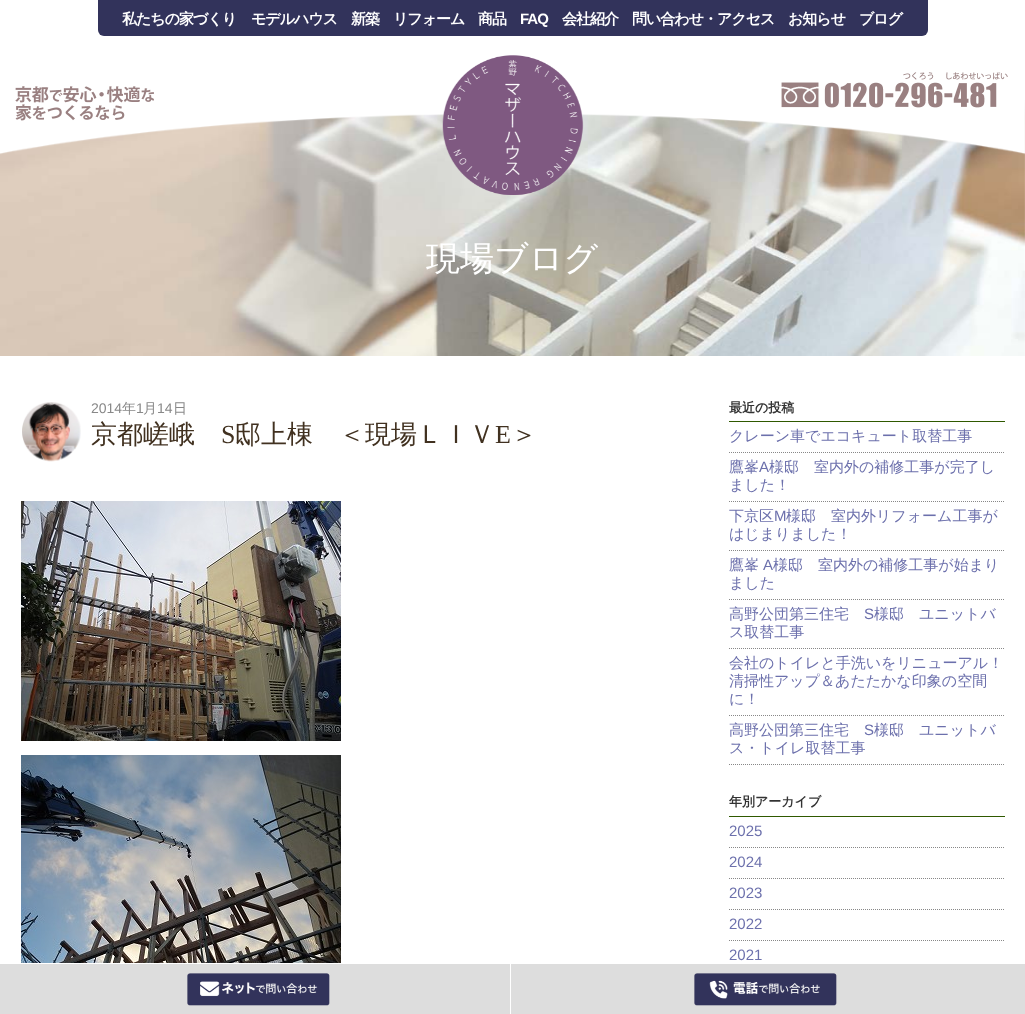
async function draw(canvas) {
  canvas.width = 1025
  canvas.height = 1014
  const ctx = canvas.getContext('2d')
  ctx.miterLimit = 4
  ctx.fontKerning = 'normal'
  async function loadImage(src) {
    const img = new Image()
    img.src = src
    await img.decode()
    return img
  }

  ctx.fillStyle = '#fff'
  ctx.fillRect(0, 0, 1025, 1014)
  ctx.fillStyle = '#32335b'
  ctx.beginPath()
  ctx.roundRect(98, 0, 830, 36, [0, 0, 6, 6])
  ctx.fill()
  ctx.letterSpacing = '-1px'
  ctx.font = 'bold 15px WenQuanYi Zen Hei'
  ctx.fillStyle = '#fff'
  ctx.fillText('私たちの家づくり', 122, 24)
  ctx.fillText('モデルハウス', 251, 24)
  ctx.fillText('新築', 351, 24)
  ctx.fillText('リフォーム', 393, 24)
  ctx.fillText('商品', 478, 24)
  ctx.font = 'bold 15px Liberation Sans'
  ctx.fillText('FAQ', 520, 24)
  ctx.font = 'bold 15px WenQuanYi Zen Hei'
  ctx.fillText('会社紹介', 562, 24)
  ctx.fillText('問い合わせ・アクセス', 632, 24)
  ctx.fillText('お知らせ', 788, 24)
  ctx.fillText('ブログ', 859, 24)
  ctx.drawImage(await loadImage('image4.png'), 0, 100, 1025, 256)
  ctx.drawImage(await loadImage('image0.png'), 0, 100, 1025, 55)
  ctx.drawImage(await loadImage('image1.png'), 15, 86, 139, 35)
  ctx.drawImage(await loadImage('image2.png'), 442, 55, 142, 140)
  ctx.drawImage(await loadImage('image3.png'), 781, 72, 227, 36)
  ctx.letterSpacing = '0px'
  ctx.font = '500 34px WenQuanYi Zen Hei'
  ctx.fillText('現場ブログ', 426, 270)
  ctx.drawImage(await loadImage('image5.png'), 22, 402, 59, 60)
  ctx.font = '14px Liberation Sans'
  ctx.fillStyle = '#888'
  ctx.fillText('2014', 91, 413)
  ctx.font = '500 14px WenQuanYi Zen Hei'
  ctx.fillText('年', 122, 413)
  ctx.font = '14px Liberation Sans'
  ctx.fillText('1', 136, 413)
  ctx.font = '500 14px WenQuanYi Zen Hei'
  ctx.fillText('月', 143, 413)
  ctx.font = '14px Liberation Sans'
  ctx.fillText('14', 157, 413)
  ctx.font = '500 14px WenQuanYi Zen Hei'
  ctx.fillText('日', 173, 413)
  ctx.font = '500 26px WenQuanYi Zen Hei'
  ctx.fillStyle = '#413120'
  ctx.fillText('京都嵯峨', 91, 443)
  ctx.font = '26px Liberation Serif'
  ctx.fillText('S', 221, 443)
  ctx.font = '500 26px WenQuanYi Zen Hei'
  ctx.fillText('邸上棟　＜現場ＬＩＶ', 235, 443)
  ctx.font = '26px Liberation Serif'
  ctx.fillText('E', 495, 443)
  ctx.font = '500 26px WenQuanYi Zen Hei'
  ctx.fillText('＞', 511, 443)
  ctx.drawImage(await loadImage('image6.png'), 21, 501, 320, 240)
  ctx.drawImage(await loadImage('image7.png'), 21, 755, 320, 208)
  ctx.font = 'bold 13px WenQuanYi Zen Hei'
  ctx.fillStyle = '#333'
  ctx.fillText('最近の投稿', 729, 412)
  ctx.fillStyle = '#2f5900'
  ctx.fillRect(729, 421, 276, 1)
  ctx.beginPath()
  ctx.moveTo(729, 452.5)
  ctx.lineTo(1005, 452.5)
  ctx.strokeStyle = '#888'
  ctx.setLineDash([1, 1])
  ctx.stroke()
  ctx.font = '500 15px WenQuanYi Zen Hei'
  ctx.fillStyle = '#6c70ac'
  ctx.fillText('クレーン車でエコキュート取替工事', 729, 441)
  ctx.beginPath()
  ctx.moveTo(729, 501.5)
  ctx.lineTo(1005, 501.5)
  ctx.stroke()
  ctx.fillText('鷹峯', 729, 472)
  ctx.font = '15px Liberation Sans'
  ctx.fillText('A', 759, 472)
  ctx.font = '500 15px WenQuanYi Zen Hei'
  ctx.fillText('様邸　室内外の補修工事が完了し', 769, 472)
  ctx.fillText('ました！', 729, 490)
  ctx.beginPath()
  ctx.moveTo(729, 550.5)
  ctx.lineTo(1005, 550.5)
  ctx.stroke()
  ctx.fillText('下京区', 729, 521)
  ctx.font = '15px Liberation Sans'
  ctx.fillText('M', 774, 521)
  ctx.font = '500 15px WenQuanYi Zen Hei'
  ctx.fillText('様邸　室内外リフォーム工事が', 786, 521)
  ctx.fillText('はじまりました！', 729, 539)
  ctx.beginPath()
  ctx.moveTo(729, 599.5)
  ctx.lineTo(1005, 599.5)
  ctx.stroke()
  ctx.fillText('鷹峯', 729, 570)
  ctx.font = '15px Liberation Sans'
  ctx.fillText('A', 763, 570)
  ctx.font = '500 15px WenQuanYi Zen Hei'
  ctx.fillText('様邸　室内外の補修工事が始まり', 773, 570)
  ctx.fillText('ました', 729, 588)
  ctx.beginPath()
  ctx.moveTo(729, 648.5)
  ctx.lineTo(1005, 648.5)
  ctx.stroke()
  ctx.fillText('高野公団第三住宅', 729, 619)
  ctx.font = '15px Liberation Sans'
  ctx.fillText('S', 864, 619)
  ctx.font = '500 15px WenQuanYi Zen Hei'
  ctx.fillText('様邸　ユニットバ', 874, 619)
  ctx.fillText('ス取替工事', 729, 637)
  ctx.beginPath()
  ctx.moveTo(729, 715.5)
  ctx.lineTo(1005, 715.5)
  ctx.stroke()
  ctx.fillText('会社のトイレと手洗いをリニューアル！', 729, 668)
  ctx.fillText('清掃性アップ＆あたたかな印象の空間', 729, 686)
  ctx.fillText('に！', 729, 704)
  ctx.beginPath()
  ctx.moveTo(729, 764.5)
  ctx.lineTo(1005, 764.5)
  ctx.stroke()
  ctx.fillText('高野公団第三住宅', 729, 735)
  ctx.font = '15px Liberation Sans'
  ctx.fillText('S', 864, 735)
  ctx.font = '500 15px WenQuanYi Zen Hei'
  ctx.fillText('様邸　ユニットバ', 874, 735)
  ctx.fillText('ス・トイレ取替工事', 729, 753)
  ctx.font = 'bold 13px WenQuanYi Zen Hei'
  ctx.fillStyle = '#333'
  ctx.fillText('年別アーカイブ', 729, 806)
  ctx.fillStyle = '#2f5900'
  ctx.fillRect(729, 816, 276, 1)
  ctx.beginPath()
  ctx.moveTo(729, 847.5)
  ctx.lineTo(1005, 847.5)
  ctx.stroke()
  ctx.font = '15px Liberation Sans'
  ctx.fillStyle = '#6c70ac'
  ctx.fillText('2025', 729, 836)
  ctx.beginPath()
  ctx.moveTo(729, 878.5)
  ctx.lineTo(1005, 878.5)
  ctx.stroke()
  ctx.fillText('2024', 729, 867)
  ctx.beginPath()
  ctx.moveTo(729, 909.5)
  ctx.lineTo(1005, 909.5)
  ctx.stroke()
  ctx.fillText('2023', 729, 898)
  ctx.beginPath()
  ctx.moveTo(729, 940.5)
  ctx.lineTo(1005, 940.5)
  ctx.stroke()
  ctx.fillText('2022', 729, 929)
  ctx.fillText('2021', 729, 960)
  ctx.fillStyle = '#ddd'
  ctx.fillRect(0, 964, 1025, 50)
  ctx.drawImage(await loadImage('image8.png'), 187, 973, 143, 33)
  ctx.fillStyle = '#fff'
  ctx.fillRect(510, 964, 1, 50)
  ctx.drawImage(await loadImage('image9.png'), 694, 973, 143, 33)
}

draw(document.querySelector('canvas'))
